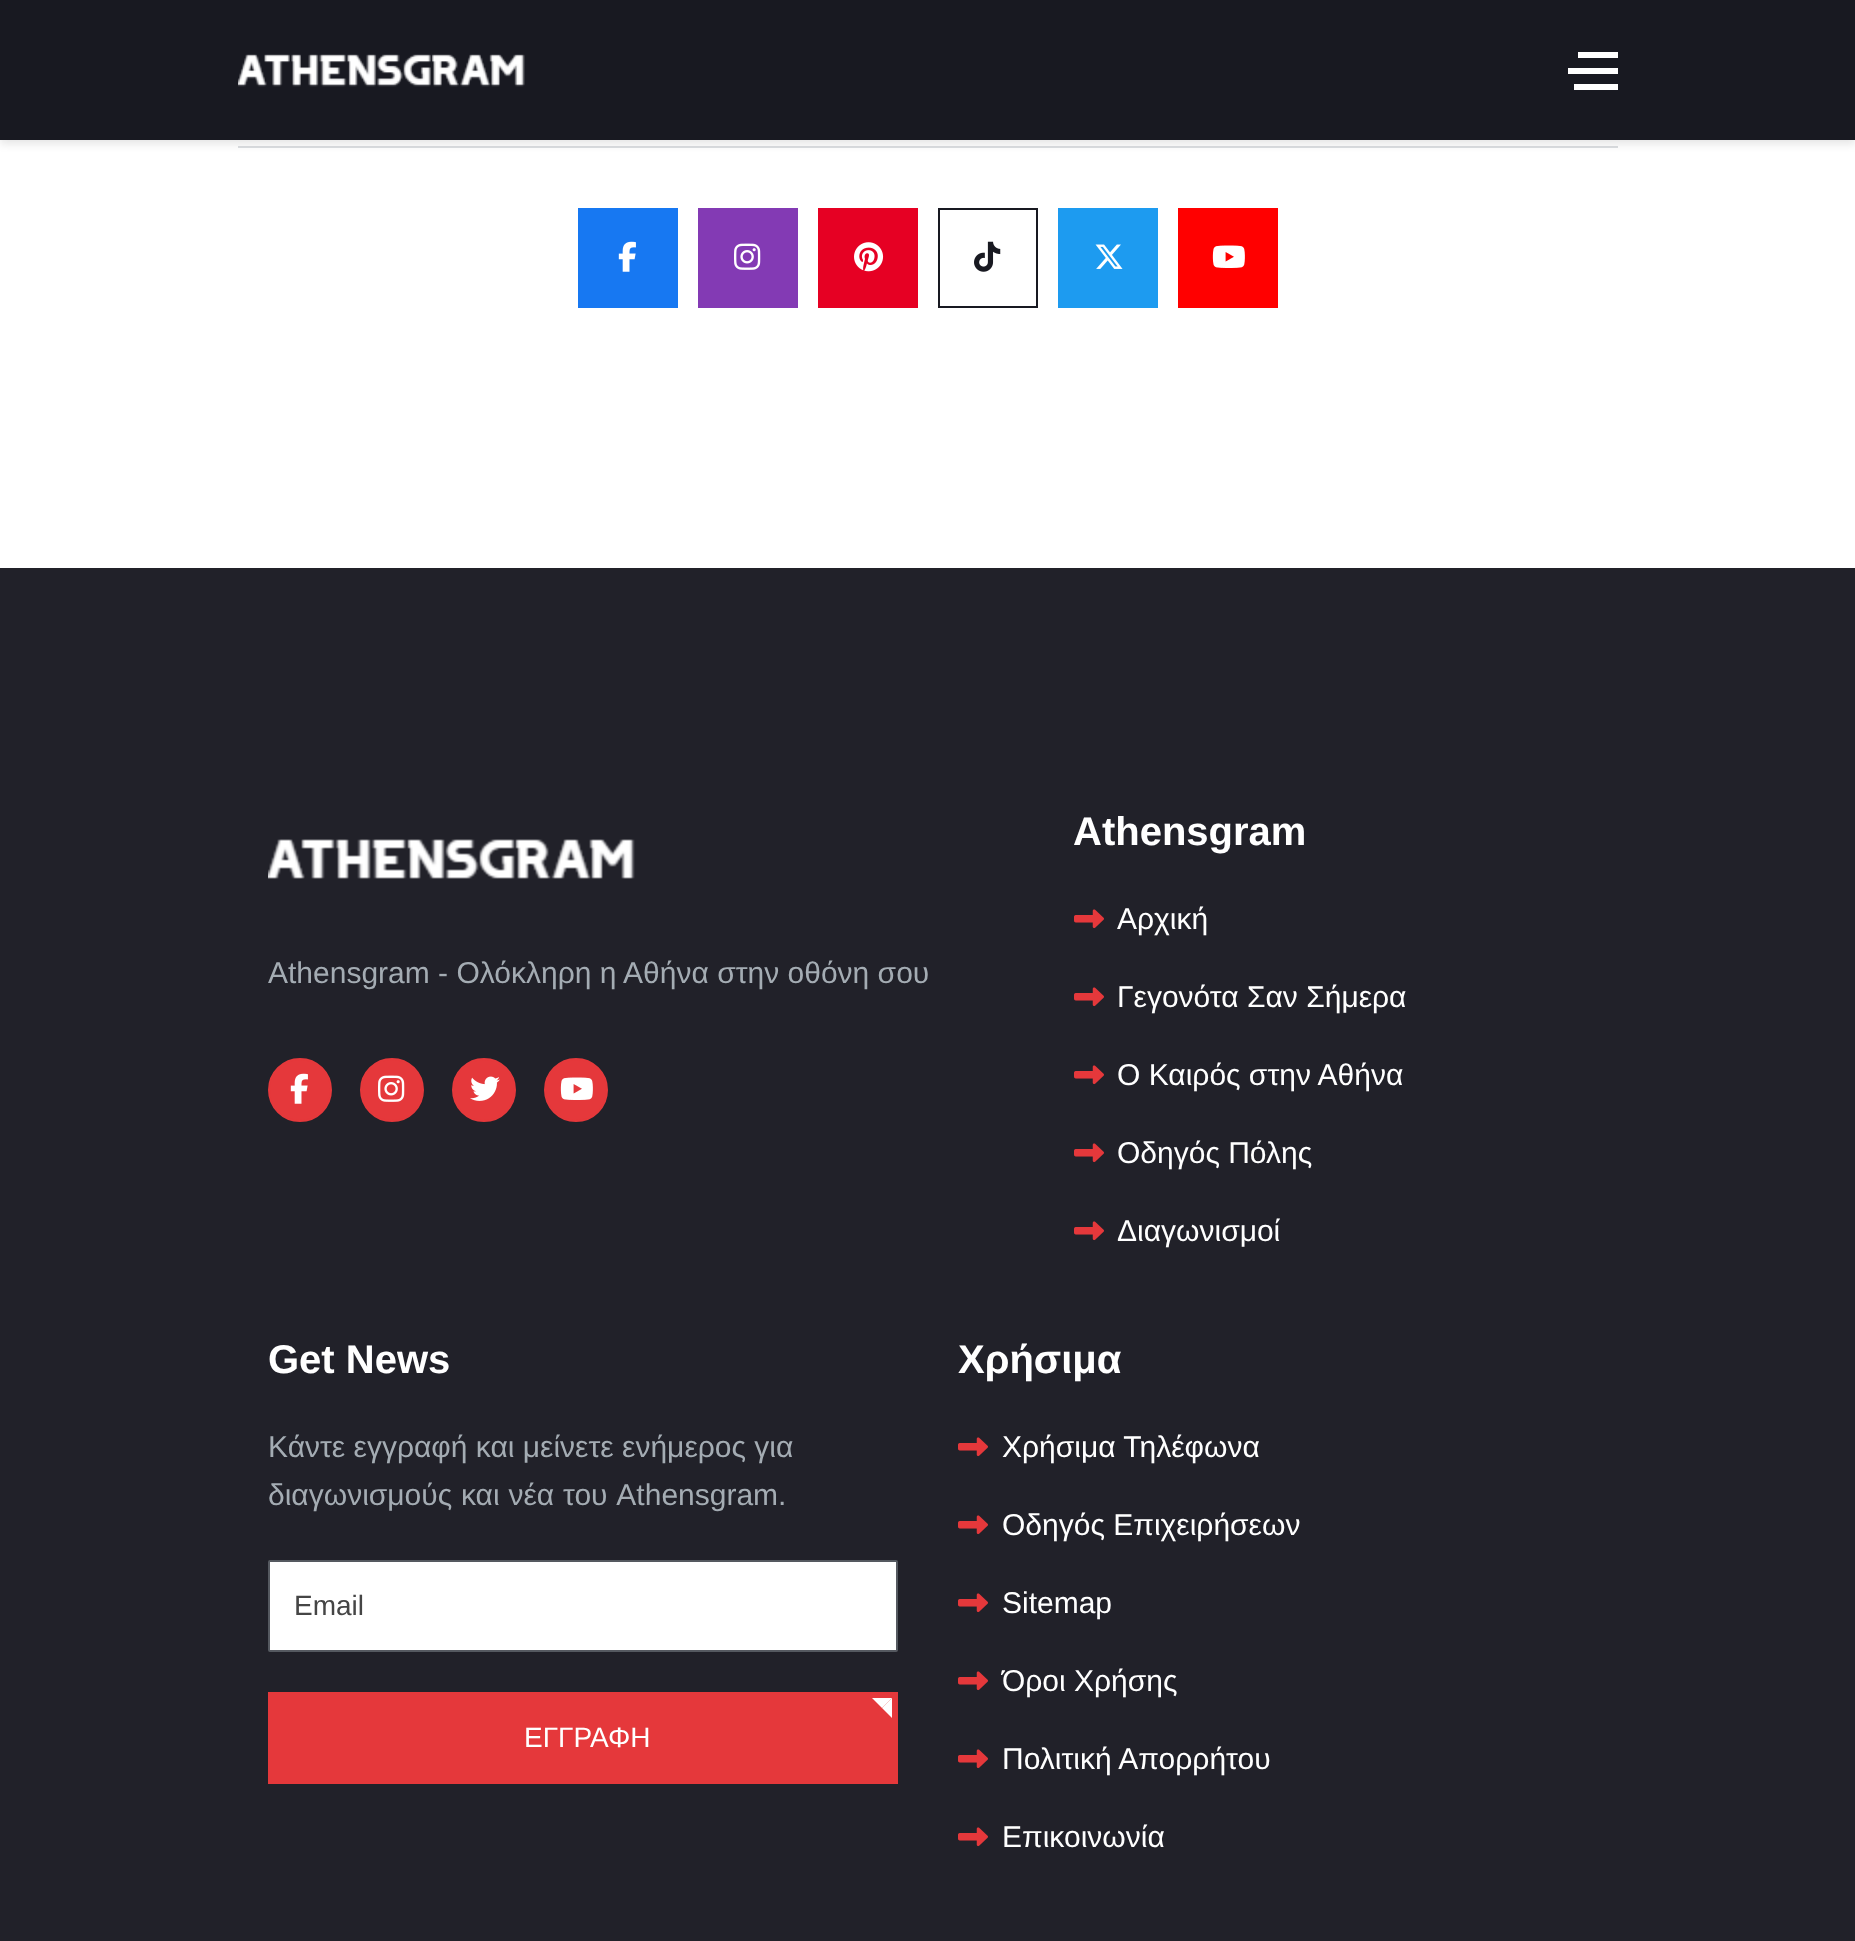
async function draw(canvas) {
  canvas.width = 1855
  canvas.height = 1941
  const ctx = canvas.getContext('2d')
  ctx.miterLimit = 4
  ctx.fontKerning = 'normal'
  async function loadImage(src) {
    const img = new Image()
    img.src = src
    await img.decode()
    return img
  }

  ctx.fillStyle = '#fff'
  ctx.fillRect(0, 0, 1855, 1941)
  ctx.fillStyle = '#dbdee1'
  ctx.fillRect(238, 146, 1380, 2)
  ctx.fillStyle = '#0000001a'
  ctx.filter = 'blur(4px)'
  ctx.beginPath()
  ctx.rect(0, 4, 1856, 140)
  ctx.fill()
  ctx.filter = 'none'
  ctx.fillStyle = '#181921'
  ctx.fillRect(0, 0, 1855, 140)
  ctx.drawImage(await loadImage('image0.png'), 238, 54, 287, 33)
  ctx.fillStyle = '#fff'
  ctx.fillRect(1578, 52, 40, 6)
  ctx.fillRect(1568, 68, 50, 6)
  ctx.fillRect(1574, 84, 44, 6)
  ctx.fillStyle = '#1778f2'
  ctx.fillRect(578, 208, 100, 100)
  ctx.drawImage(await loadImage('image1.png'), 618, 241, 18, 31)
  ctx.fillStyle = '#833ab4'
  ctx.fillRect(698, 208, 100, 100)
  ctx.drawImage(await loadImage('image2.png'), 734, 243, 27, 27)
  ctx.fillStyle = '#e60023'
  ctx.fillRect(818, 208, 100, 100)
  ctx.drawImage(await loadImage('image3.png'), 854, 242, 30, 30)
  ctx.strokeStyle = '#181921'
  ctx.lineWidth = 2
  ctx.strokeRect(939, 209, 98, 98)
  ctx.drawImage(await loadImage('image4.png'), 974, 241, 27, 31)
  ctx.fillStyle = '#1d9bf0'
  ctx.fillRect(1058, 208, 100, 100)
  ctx.drawImage(await loadImage('image5.png'), 1095, 244, 28, 25)
  ctx.fillStyle = '#f00'
  ctx.fillRect(1178, 208, 100, 100)
  ctx.drawImage(await loadImage('image6.png'), 1212, 245, 33, 23)
  ctx.fillStyle = '#212129'
  ctx.fillRect(0, 568, 1855, 1373)
  ctx.drawImage(await loadImage('image7.png'), 268, 839, 367, 40)
  ctx.font = '30px Liberation Sans'
  ctx.fillStyle = '#a4acb3'
  ctx.fillText('Athensgram - Ολόκληρη η Αθήνα στην οθόνη σου', 268, 983)
  ctx.fillStyle = '#e5383b'
  ctx.beginPath()
  ctx.arc(300, 1090, 31, 0, 2 * Math.PI)
  ctx.fill()
  ctx.strokeStyle = '#e5383b'
  ctx.stroke()
  ctx.drawImage(await loadImage('image8.png'), 290, 1073, 18, 31)
  ctx.beginPath()
  ctx.arc(392, 1090, 31, 0, 2 * Math.PI)
  ctx.fill()
  ctx.stroke()
  ctx.drawImage(await loadImage('image9.png'), 378, 1075, 27, 27)
  ctx.beginPath()
  ctx.arc(484, 1090, 31, 0, 2 * Math.PI)
  ctx.fill()
  ctx.stroke()
  ctx.drawImage(await loadImage('image10.png'), 470, 1076, 30, 25)
  ctx.beginPath()
  ctx.arc(576, 1090, 31, 0, 2 * Math.PI)
  ctx.fill()
  ctx.stroke()
  ctx.drawImage(await loadImage('image11.png'), 560, 1077, 33, 23)
  ctx.font = 'bold 40px Liberation Sans'
  ctx.fillStyle = '#fff'
  ctx.fillText('Athensgram', 1073, 845)
  ctx.drawImage(await loadImage('image12.png'), 1074, 909, 30, 20)
  ctx.font = '30px Liberation Sans'
  ctx.fillText('Αρχική', 1117, 929)
  ctx.drawImage(await loadImage('image12.png'), 1074, 987, 30, 20)
  ctx.fillText('Γεγονότα Σαν Σήμερα', 1117, 1007)
  ctx.drawImage(await loadImage('image12.png'), 1074, 1065, 30, 20)
  ctx.fillText('Ο Καιρός στην Αθήνα', 1117, 1085)
  ctx.drawImage(await loadImage('image12.png'), 1074, 1143, 30, 20)
  ctx.fillText('Οδηγός Πόλης', 1117, 1163)
  ctx.drawImage(await loadImage('image12.png'), 1074, 1221, 30, 20)
  ctx.fillText('Διαγωνισμοί', 1117, 1241)
  ctx.font = 'bold 40px Liberation Sans'
  ctx.fillText('Get News', 268, 1373)
  ctx.font = '30px Liberation Sans'
  ctx.fillStyle = '#a4acb3'
  ctx.fillText('Κάντε εγγραφή και μείνετε ενήμερος για', 268, 1457)
  ctx.wordSpacing = '0.5px'
  ctx.fillText('διαγωνισμούς και νέα του Athensgram.', 268, 1505)
  ctx.fillStyle = '#fff'
  ctx.beginPath()
  ctx.roundRect(269, 1561, 628, 90, 1)
  ctx.fill()
  ctx.strokeStyle = '#555960'
  ctx.stroke()
  ctx.wordSpacing = '0px'
  ctx.font = '28px Liberation Sans'
  ctx.fillStyle = '#454545'
  ctx.fillText('Email', 294, 1615)
  ctx.fillStyle = '#e5383b'
  ctx.fillRect(268, 1692, 630, 92)
  ctx.fillStyle = '#fff'
  ctx.beginPath()
  ctx.moveTo(872, 1698)
  ctx.lineTo(892, 1698)
  ctx.lineTo(882, 1708)
  ctx.closePath()
  ctx.fill()
  ctx.beginPath()
  ctx.moveTo(892, 1698)
  ctx.lineTo(892, 1718)
  ctx.lineTo(882, 1708)
  ctx.closePath()
  ctx.fill()
  ctx.fillText('ΕΓΓΡΑΦΗ', 524, 1747)
  ctx.font = 'bold 40px Liberation Sans'
  ctx.fillText('Χρήσιμα', 958, 1373)
  ctx.drawImage(await loadImage('image12.png'), 958, 1437, 30, 20)
  ctx.font = '30px Liberation Sans'
  ctx.fillText('Χρήσιμα Τηλέφωνα', 1002, 1457)
  ctx.drawImage(await loadImage('image12.png'), 958, 1515, 30, 20)
  ctx.fillText('Οδηγός Επιχειρήσεων', 1002, 1535)
  ctx.drawImage(await loadImage('image12.png'), 958, 1593, 30, 20)
  ctx.fillText('Sitemap', 1002, 1613)
  ctx.drawImage(await loadImage('image12.png'), 958, 1671, 30, 20)
  ctx.fillText('Όροι Χρήσης', 1002, 1691)
  ctx.drawImage(await loadImage('image12.png'), 958, 1749, 30, 20)
  ctx.fillText('Πολιτική Απορρήτου', 1002, 1769)
  ctx.drawImage(await loadImage('image12.png'), 958, 1827, 30, 20)
  ctx.fillText('Επικοινωνία', 1002, 1847)
}

draw(document.querySelector('canvas'))
